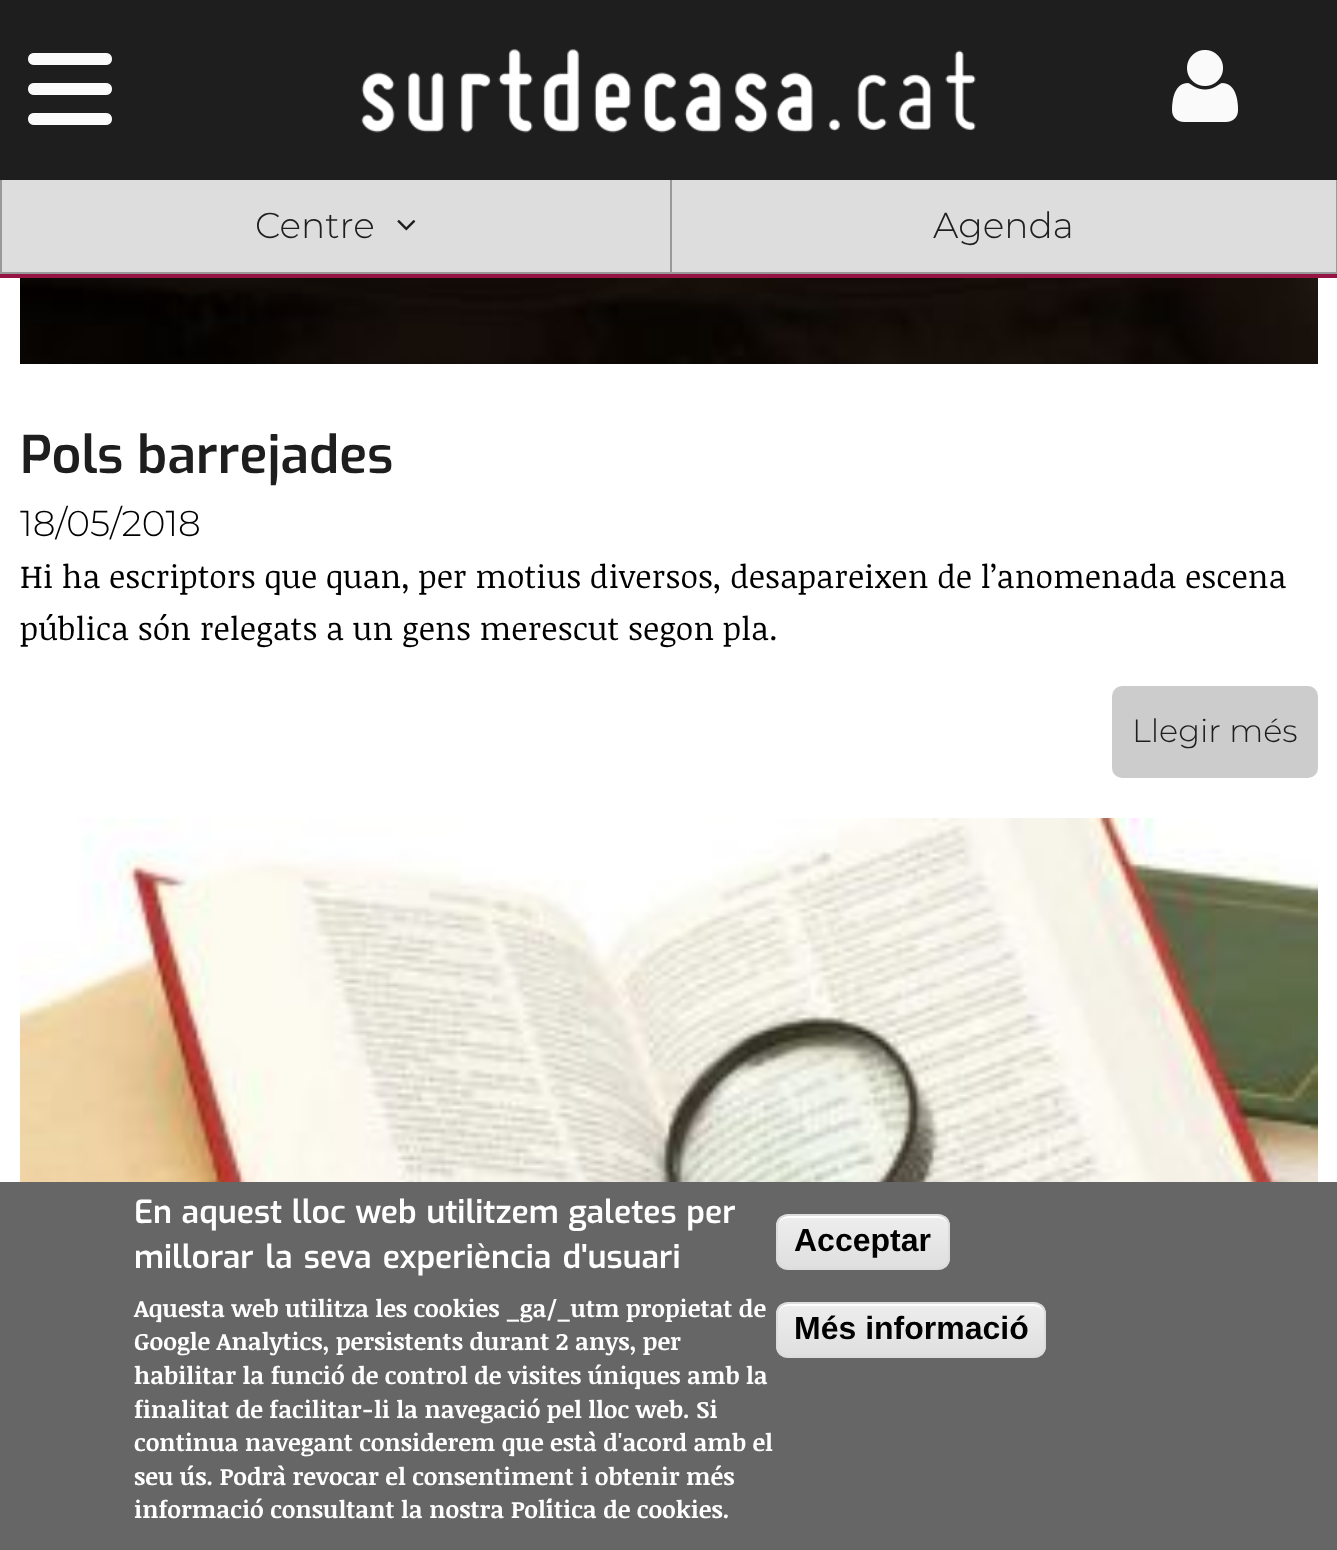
async function draw(canvas) {
  canvas.width = 1337
  canvas.height = 1550
  const ctx = canvas.getContext('2d')
  ctx.miterLimit = 4
  ctx.fontKerning = 'normal'
  async function loadImage(src) {
    const img = new Image()
    img.src = src
    await img.decode()
    return img
  }
  let gradient

  ctx.fillStyle = '#fff'
  ctx.fillRect(0, 0, 1337, 1550)
  ctx.fillStyle = '#1e1e1e'
  ctx.fillRect(0, 0, 1337, 180)
  ctx.drawImage(await loadImage('image0.png'), 28, 53, 84, 72)
  ctx.drawImage(await loadImage('image1.png'), 361, 49, 615, 84)
  ctx.drawImage(await loadImage('image2.png'), 1172, 50, 67, 72)
  ctx.fillStyle = '#961444'
  ctx.fillRect(0, 274, 1337, 4)
  ctx.fillStyle = '#ddd'
  ctx.fillRect(2, 180, 668, 92)
  ctx.fillStyle = '#999'
  ctx.fillRect(0, 272, 670, 2)
  ctx.fillRect(0, 180, 2, 94)
  ctx.font = '300 36px Montserrat'
  ctx.fillStyle = '#1e1e1e'
  ctx.fillText('Centre', 255, 238)
  ctx.drawImage(await loadImage('image3.png'), 397, 220, 19, 11)
  ctx.fillStyle = '#ddd'
  ctx.fillRect(672, 180, 664, 92)
  ctx.fillStyle = '#999'
  ctx.fillRect(1336, 180, 1, 94)
  ctx.fillRect(670, 272, 667, 2)
  ctx.fillRect(670, 180, 2, 94)
  ctx.fillStyle = '#1e1e1e'
  ctx.fillText('Agenda', 933, 238)
  ctx.drawImage(await loadImage('image4.png'), 20, 278, 1298, 86)
  ctx.font = '600 52px Exo'
  ctx.fillText('Pols barrejades', 20, 473)
  ctx.font = '300 36px Montserrat'
  ctx.fillStyle = '#000'
  ctx.fillText('18/05/2018', 20, 536)
  ctx.font = '32px Noticia Text'
  ctx.fillText('Hi ha escriptors que quan, per motius diversos, desapareixen de l’anomenada escena', 20, 588)
  ctx.fillText('pública són relegats a un gens merescut segon pla.', 20, 640)
  ctx.fillStyle = '#ccc'
  ctx.beginPath()
  ctx.roundRect(1112, 686, 206, 92, 10)
  ctx.fill()
  ctx.font = '300 32px Montserrat'
  ctx.fillStyle = '#1e1e1e'
  ctx.fillText('Llegir més', 1132, 742)
  ctx.drawImage(await loadImage('image5.png'), 20, 818, 1298, 364)
  ctx.fillStyle = '#666'
  ctx.fillRect(0, 1182, 1337, 368)
  ctx.wordSpacing = '1.25px'
  ctx.font = '600 32px Exo'
  ctx.fillStyle = '#fff'
  ctx.fillText('En aquest lloc web utilitzem galetes per', 134, 1223)
  ctx.wordSpacing = '3px'
  ctx.fillText('millorar la seva experiència d\'usuari', 134, 1268)
  ctx.wordSpacing = '0px'
  ctx.font = 'bold 24px Noticia Text'
  ctx.fillText('Aquesta web utilitza les cookies _ga/_utm propietat de', 134, 1317)
  ctx.fillText('Google Analytics, persistents durant 2 anys, per', 134, 1350)
  ctx.fillText('habilitar la funció de control de visites úniques amb la', 134, 1384)
  ctx.fillText('finalitat de facilitar-li la navegació pel lloc web. Si', 134, 1418)
  ctx.fillText('continua navegant considerem que està d\'acord amb el', 134, 1451)
  ctx.fillText('seu ús. Podrà revocar el consentiment i obtenir més', 134, 1485)
  ctx.fillText('informació consultant la nostra Política de cookies.', 134, 1518)
  ctx.save()
  ctx.beginPath()
  ctx.roundRect(776, 1214, 174, 56, 12)
  ctx.clip()
  gradient = ctx.createLinearGradient(863, 1216, 863, 1268)
  gradient.addColorStop(0.05, '#ededed')
  gradient.addColorStop(1, '#dfdfdf')
  ctx.fillStyle = gradient
  ctx.fillRect(776, 1216, 174, 52)
  ctx.restore()
  ctx.beginPath()
  ctx.moveTo(788, 1218)
  ctx.lineTo(938, 1218)
  ctx.bezierCurveTo(944, 1218, 948, 1222, 948, 1228)
  ctx.lineTo(948, 1226)
  ctx.bezierCurveTo(948, 1220, 944, 1216, 938, 1216)
  ctx.lineTo(788, 1216)
  ctx.bezierCurveTo(782, 1216, 778, 1220, 778, 1226)
  ctx.lineTo(778, 1228)
  ctx.bezierCurveTo(778, 1222, 782, 1218, 788, 1218)
  ctx.closePath()
  ctx.fill()
  ctx.beginPath()
  ctx.roundRect(777, 1215, 172, 54, 11)
  ctx.strokeStyle = '#dcdcdc'
  ctx.lineWidth = 2
  ctx.stroke()
  ctx.font = 'bold 32px Liberation Sans'
  ctx.fillStyle = '#000'
  ctx.fillText('Acceptar', 794, 1251)
  ctx.save()
  ctx.beginPath()
  ctx.roundRect(776, 1302, 270, 56, 12)
  ctx.clip()
  gradient = ctx.createLinearGradient(911, 1304, 911, 1356)
  gradient.addColorStop(0.05, '#ededed')
  gradient.addColorStop(1, '#dfdfdf')
  ctx.fillStyle = gradient
  ctx.fillRect(776, 1304, 270, 52)
  ctx.restore()
  ctx.fillStyle = '#fff'
  ctx.beginPath()
  ctx.moveTo(788, 1306)
  ctx.lineTo(1034, 1306)
  ctx.bezierCurveTo(1040, 1306, 1044, 1310, 1044, 1316)
  ctx.lineTo(1044, 1314)
  ctx.bezierCurveTo(1044, 1308, 1040, 1304, 1034, 1304)
  ctx.lineTo(788, 1304)
  ctx.bezierCurveTo(782, 1304, 778, 1308, 778, 1314)
  ctx.lineTo(778, 1316)
  ctx.bezierCurveTo(778, 1310, 782, 1306, 788, 1306)
  ctx.closePath()
  ctx.fill()
  ctx.beginPath()
  ctx.roundRect(777, 1303, 268, 54, 11)
  ctx.stroke()
  ctx.fillStyle = '#000'
  ctx.fillText('Més informació', 794, 1339)
}

draw(document.querySelector('canvas'))
